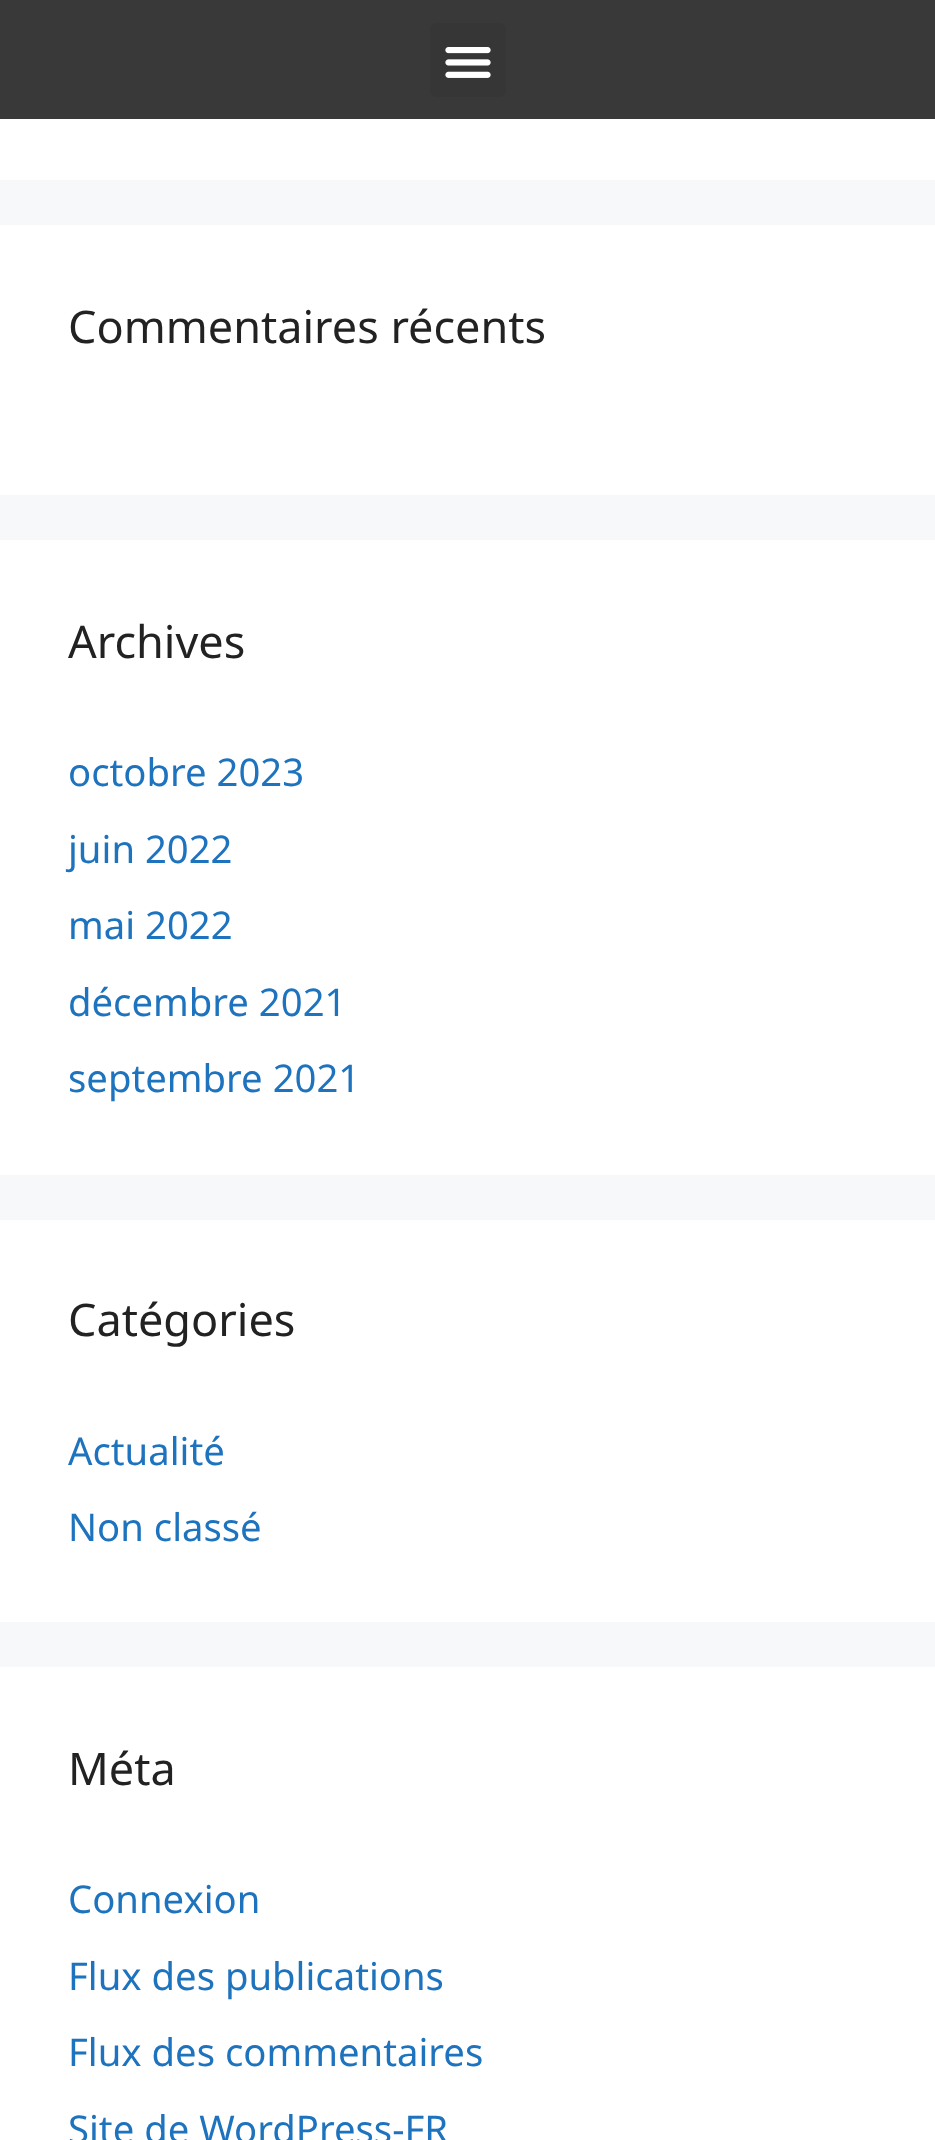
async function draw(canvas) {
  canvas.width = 935
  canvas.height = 2140
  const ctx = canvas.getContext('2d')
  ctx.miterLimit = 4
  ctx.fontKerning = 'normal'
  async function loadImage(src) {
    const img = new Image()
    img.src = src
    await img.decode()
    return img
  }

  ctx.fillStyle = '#f7f8f9'
  ctx.fillRect(0, 0, 935, 2140)
  ctx.fillStyle = '#393939'
  ctx.fillRect(0, 0, 935, 119)
  ctx.fillStyle = '#363636'
  ctx.beginPath()
  ctx.roundRect(430, 23, 76, 74, 7)
  ctx.fill()
  ctx.drawImage(await loadImage('image0.png'), 445, 47, 46, 31)
  ctx.fillStyle = '#fff'
  ctx.fillRect(0, 119, 935, 61)
  ctx.fillRect(0, 225, 935, 270)
  ctx.font = '45px Noto Sans'
  ctx.fillStyle = '#222'
  ctx.fillText('Commentaires récents', 68, 343)
  ctx.fillStyle = '#fff'
  ctx.fillRect(0, 540, 935, 635)
  ctx.fillStyle = '#222'
  ctx.fillText('Archives', 68, 658)
  ctx.font = '38.25px Noto Sans'
  ctx.fillStyle = '#1e73be'
  ctx.fillText('octobre 2023', 68, 786)
  ctx.fillText('juin 2022', 68, 863)
  ctx.fillText('mai 2022', 68, 939)
  ctx.fillText('décembre 2021', 68, 1016)
  ctx.fillText('septembre 2021', 68, 1092)
  ctx.fillStyle = '#fff'
  ctx.fillRect(0, 1220, 935, 402)
  ctx.font = '45px Noto Sans'
  ctx.fillStyle = '#222'
  ctx.fillText('Catégories', 68, 1336)
  ctx.font = '38.25px Noto Sans'
  ctx.fillStyle = '#1e73be'
  ctx.fillText('Actualité', 68, 1465)
  ctx.fillText('Non classé', 68, 1541)
  ctx.fillStyle = '#fff'
  ctx.fillRect(0, 1667, 935, 473)
  ctx.font = '45px Noto Sans'
  ctx.fillStyle = '#222'
  ctx.fillText('Méta', 68, 1785)
  ctx.font = '38.25px Noto Sans'
  ctx.fillStyle = '#1e73be'
  ctx.fillText('Connexion', 68, 1913)
  ctx.fillText('Flux des publications', 68, 1990)
  ctx.fillText('Flux des commentaires', 68, 2066)
  ctx.fillText('Site de WordPress-FR', 68, 2143)
}

draw(document.querySelector('canvas'))
